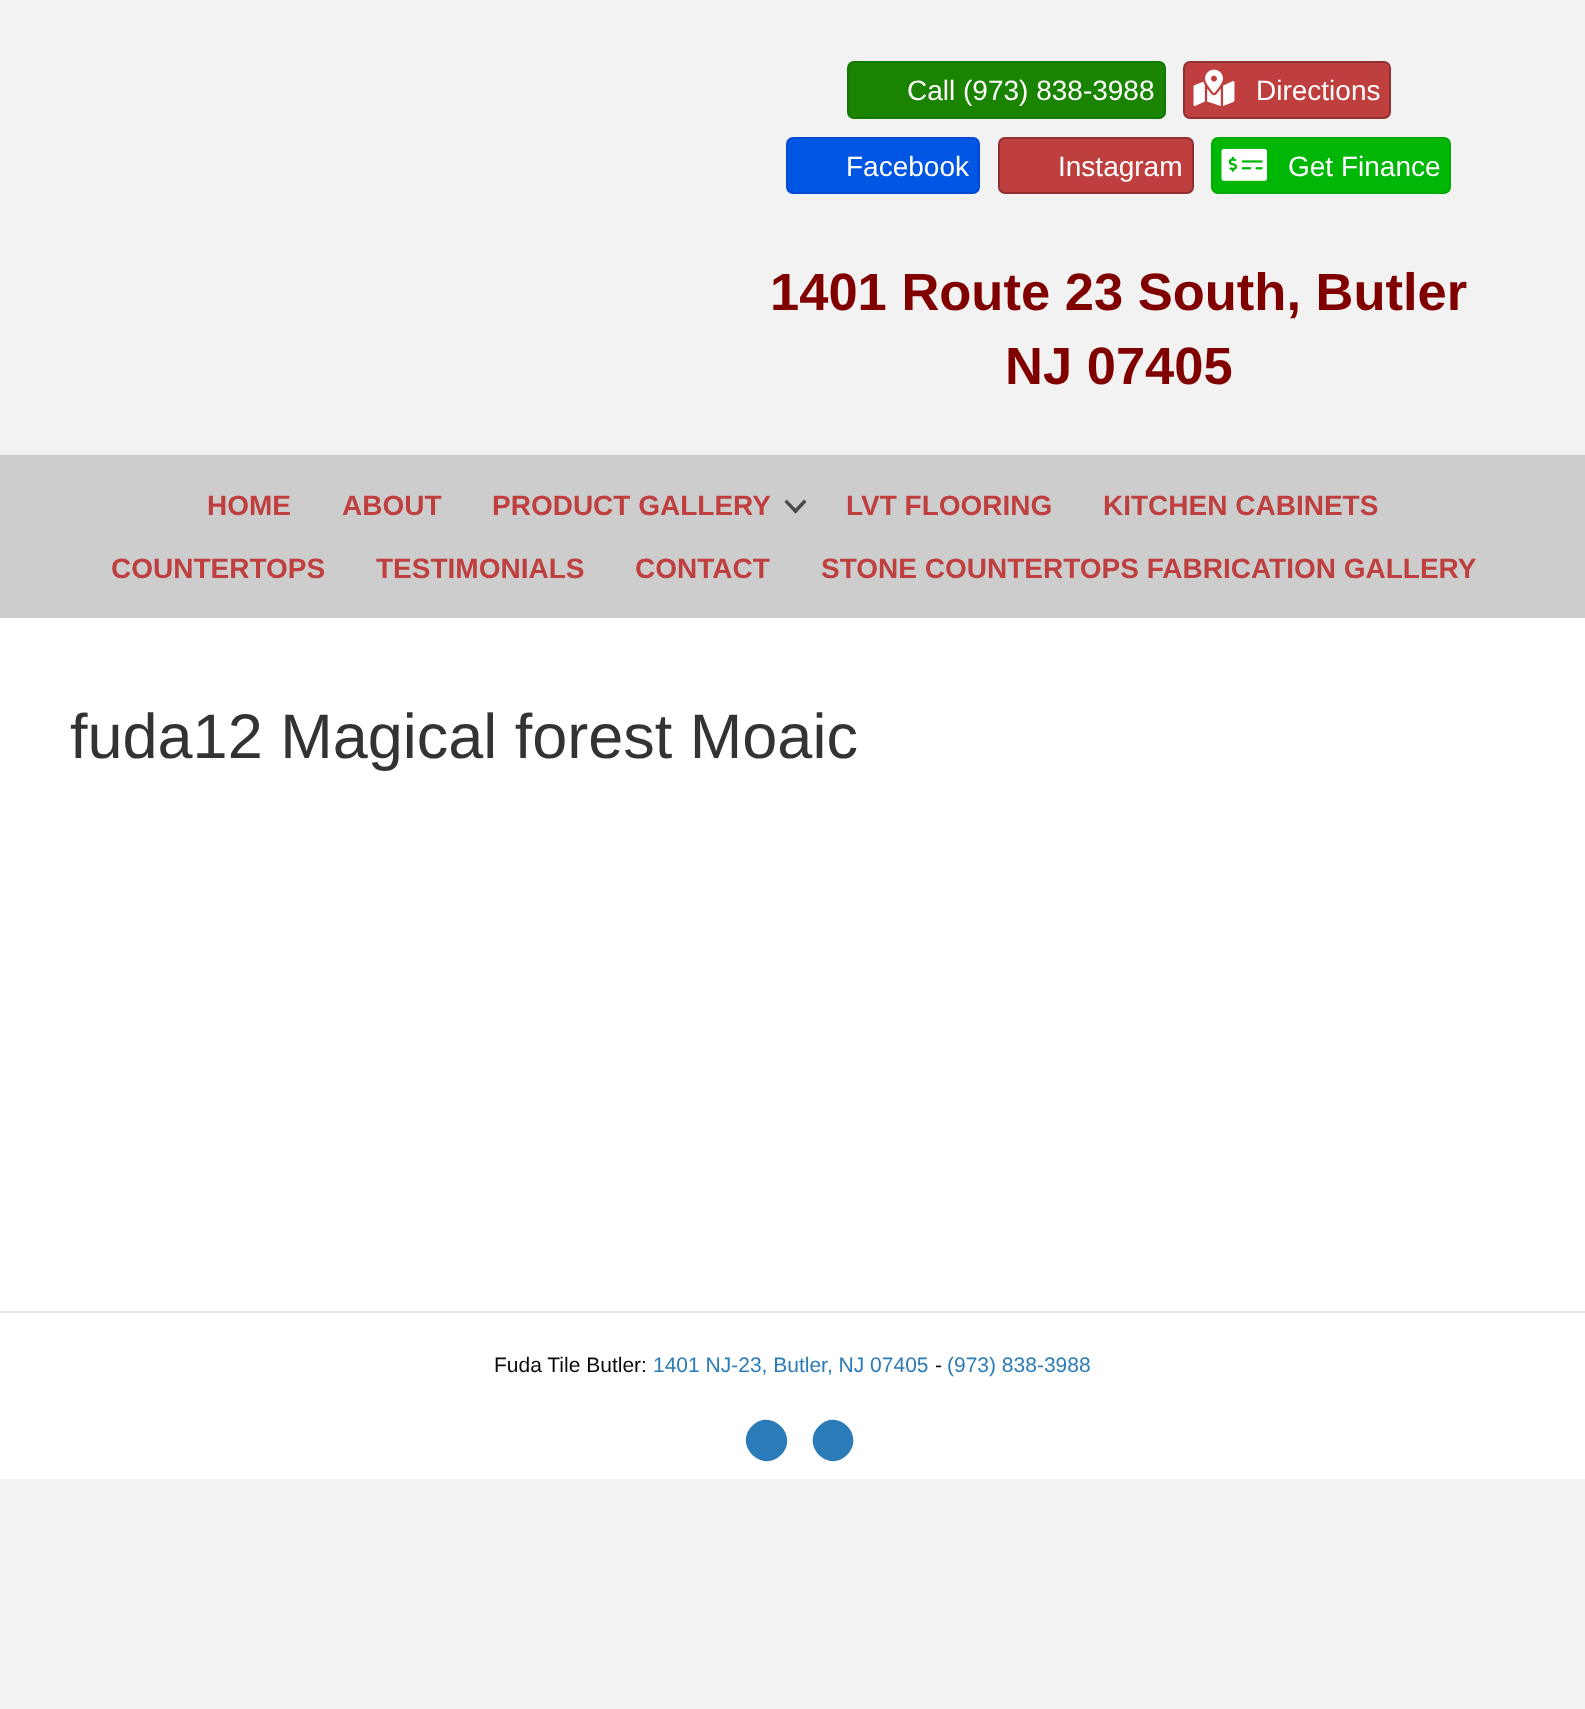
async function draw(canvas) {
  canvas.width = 1585
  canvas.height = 1709
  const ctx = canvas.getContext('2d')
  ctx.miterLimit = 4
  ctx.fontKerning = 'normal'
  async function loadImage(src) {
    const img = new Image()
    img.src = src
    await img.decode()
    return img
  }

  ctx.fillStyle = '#f2f2f2'
  ctx.fillRect(0, 0, 1585, 1709)
  ctx.fillStyle = '#1a8400'
  ctx.beginPath()
  ctx.roundRect(848, 62, 317, 56, 6)
  ctx.fill()
  ctx.strokeStyle = '#0e7800'
  ctx.lineWidth = 2
  ctx.stroke()
  ctx.font = '28px Liberation Sans'
  ctx.fillStyle = '#fff'
  ctx.fillText('Call (973) 838-3988', 907, 100)
  ctx.fillStyle = '#bf3f3f'
  ctx.beginPath()
  ctx.roundRect(1184, 62, 206, 56, 6)
  ctx.fill()
  ctx.strokeStyle = '#913030'
  ctx.stroke()
  ctx.drawImage(await loadImage('image0.png'), 1193, 69, 42, 37)
  ctx.fillStyle = '#fff'
  ctx.fillText('Directions', 1256, 100)
  ctx.fillStyle = '#0056e2'
  ctx.beginPath()
  ctx.roundRect(787, 138, 192, 55, 6)
  ctx.fill()
  ctx.strokeStyle = '#004ad6'
  ctx.stroke()
  ctx.fillStyle = '#fff'
  ctx.fillText('Facebook', 846, 176)
  ctx.fillStyle = '#bf3f3f'
  ctx.beginPath()
  ctx.roundRect(999, 138, 194, 55, 6)
  ctx.fill()
  ctx.strokeStyle = '#913030'
  ctx.stroke()
  ctx.fillStyle = '#fff'
  ctx.fillText('Instagram', 1058, 176)
  ctx.fillStyle = '#00b706'
  ctx.beginPath()
  ctx.roundRect(1212, 138, 238, 55, 6)
  ctx.fill()
  ctx.strokeStyle = '#00ab00'
  ctx.stroke()
  ctx.drawImage(await loadImage('image1.png'), 1221, 148, 46, 33)
  ctx.fillStyle = '#fff'
  ctx.fillText('Get Finance', 1288, 176)
  ctx.font = 'bold 52.5px Liberation Sans'
  ctx.fillStyle = '#800000'
  ctx.fillText('1401 Route 23 South, Butler', 770, 310)
  ctx.fillText('NJ 07405', 1005, 384)
  ctx.fillStyle = '#cdcdcd'
  ctx.fillRect(0, 455, 1585, 163)
  ctx.font = 'bold 28px Liberation Sans'
  ctx.fillStyle = '#bf3f3f'
  ctx.fillText('HOME', 207, 515)
  ctx.fillText('ABOUT', 342, 515)
  ctx.fillText('PRODUCT GALLERY', 492, 515)
  ctx.fillStyle = '#494949'
  ctx.beginPath()
  ctx.moveTo(804, 499.5)
  ctx.lineTo(806.5, 502)
  ctx.lineTo(795.5, 513.5)
  ctx.lineTo(793, 511)
  ctx.closePath()
  ctx.fill()
  ctx.beginPath()
  ctx.moveTo(786.5, 499.5)
  ctx.lineTo(798, 511)
  ctx.lineTo(795.5, 513.5)
  ctx.lineTo(784.5, 502)
  ctx.closePath()
  ctx.fill()
  ctx.fillStyle = '#bf3f3f'
  ctx.fillText('LVT FLOORING', 846, 515)
  ctx.fillText('KITCHEN CABINETS', 1103, 515)
  ctx.fillText('COUNTERTOPS', 111, 578)
  ctx.fillText('TESTIMONIALS', 376, 578)
  ctx.fillText('CONTACT', 635, 578)
  ctx.fillText('STONE COUNTERTOPS FABRICATION GALLERY', 821, 578)
  ctx.fillStyle = '#fff'
  ctx.fillRect(0, 618, 1585, 693)
  ctx.font = '63px Liberation Sans'
  ctx.fillStyle = '#333'
  ctx.fillText('fuda12 Magical forest Moaic', 70, 758)
  ctx.fillStyle = '#fff'
  ctx.fillRect(0, 1313, 1585, 166)
  ctx.fillStyle = '#e6e6e6'
  ctx.fillRect(0, 1311, 1585, 2)
  ctx.font = '21px Liberation Sans'
  ctx.fillStyle = '#0a0a0a'
  ctx.fillText('Fuda Tile Butler:', 494, 1372)
  ctx.fillStyle = '#2b7bb9'
  ctx.fillText('1401 NJ-23, Butler, NJ 07405', 653, 1372)
  ctx.fillStyle = '#0a0a0a'
  ctx.fillText('-', 935, 1372)
  ctx.fillStyle = '#2b7bb9'
  ctx.fillText('(973) 838-3988', 947, 1372)
  ctx.beginPath()
  ctx.moveTo(752, 1426)
  ctx.bezierCurveTo(771, 1407, 800, 1436, 781, 1455)
  ctx.bezierCurveTo(762, 1474, 733, 1445, 752, 1426)
  ctx.closePath()
  ctx.fill()
  ctx.beginPath()
  ctx.moveTo(819, 1426)
  ctx.bezierCurveTo(838, 1407, 866, 1436, 847, 1455)
  ctx.bezierCurveTo(828, 1474, 800, 1445, 819, 1426)
  ctx.closePath()
  ctx.fill()
}

draw(document.querySelector('canvas'))
